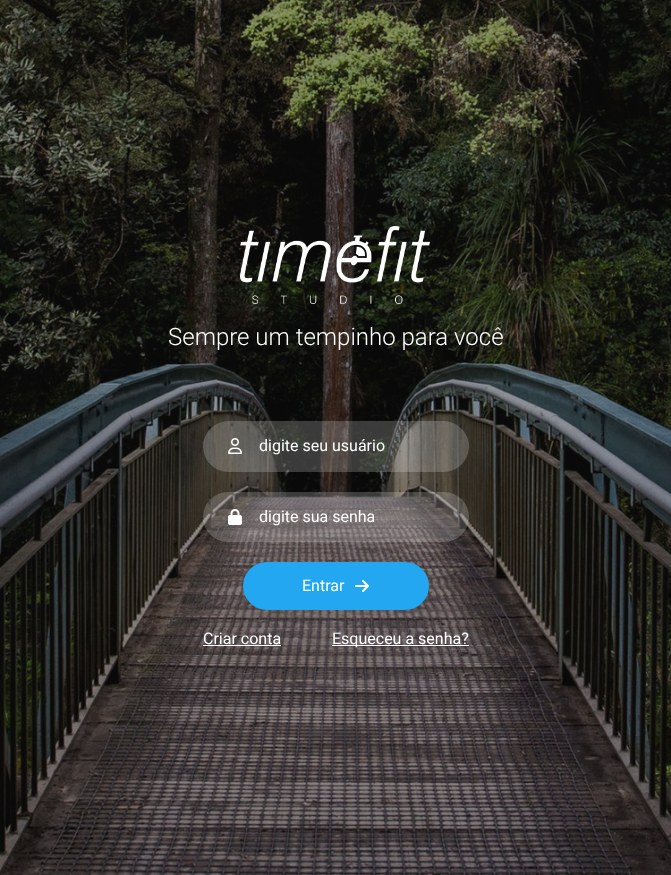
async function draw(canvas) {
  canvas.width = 671
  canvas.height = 875
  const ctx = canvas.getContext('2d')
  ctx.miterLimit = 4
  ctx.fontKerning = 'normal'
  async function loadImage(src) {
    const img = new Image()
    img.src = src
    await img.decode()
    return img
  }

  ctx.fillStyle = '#fff'
  ctx.fillRect(0, 0, 671, 875)
  ctx.drawImage(await loadImage('image0.png'), 0, 0, 671, 875)
  ctx.drawImage(await loadImage('image1.png'), 240, 226, 190, 78)
  ctx.font = '300 24px Roboto'
  ctx.fillText('Sempre um tempinho para você', 168, 345)
  ctx.fillStyle = '#ffffff33'
  ctx.beginPath()
  ctx.roundRect(203, 421, 266, 51, 25.5)
  ctx.fill()
  ctx.drawImage(await loadImage('image2.png'), 228, 438, 14, 16)
  ctx.font = '16px Roboto'
  ctx.fillStyle = '#fff'
  ctx.fillText('digite seu usuário', 259, 451)
  ctx.fillStyle = '#ffffff33'
  ctx.beginPath()
  ctx.roundRect(203, 492, 266, 50, 25)
  ctx.fill()
  ctx.drawImage(await loadImage('image3.png'), 228, 509, 14, 16)
  ctx.fillStyle = '#fff'
  ctx.fillText('digite sua senha', 259, 522)
  ctx.fillStyle = '#23a7f0'
  ctx.beginPath()
  ctx.roundRect(243, 562, 186, 48, 24)
  ctx.fill()
  ctx.fillStyle = '#fff'
  ctx.fillText('Entrar', 302, 591)
  ctx.drawImage(await loadImage('image4.png'), 355, 580, 14, 12)
  ctx.fillText('Criar conta', 203, 644)
  ctx.fillRect(203, 645, 78, 1)
  ctx.fillRect(332, 645, 137, 1)
  ctx.fillText('Esqueceu a senha?', 332, 644)
}

draw(document.querySelector('canvas'))
